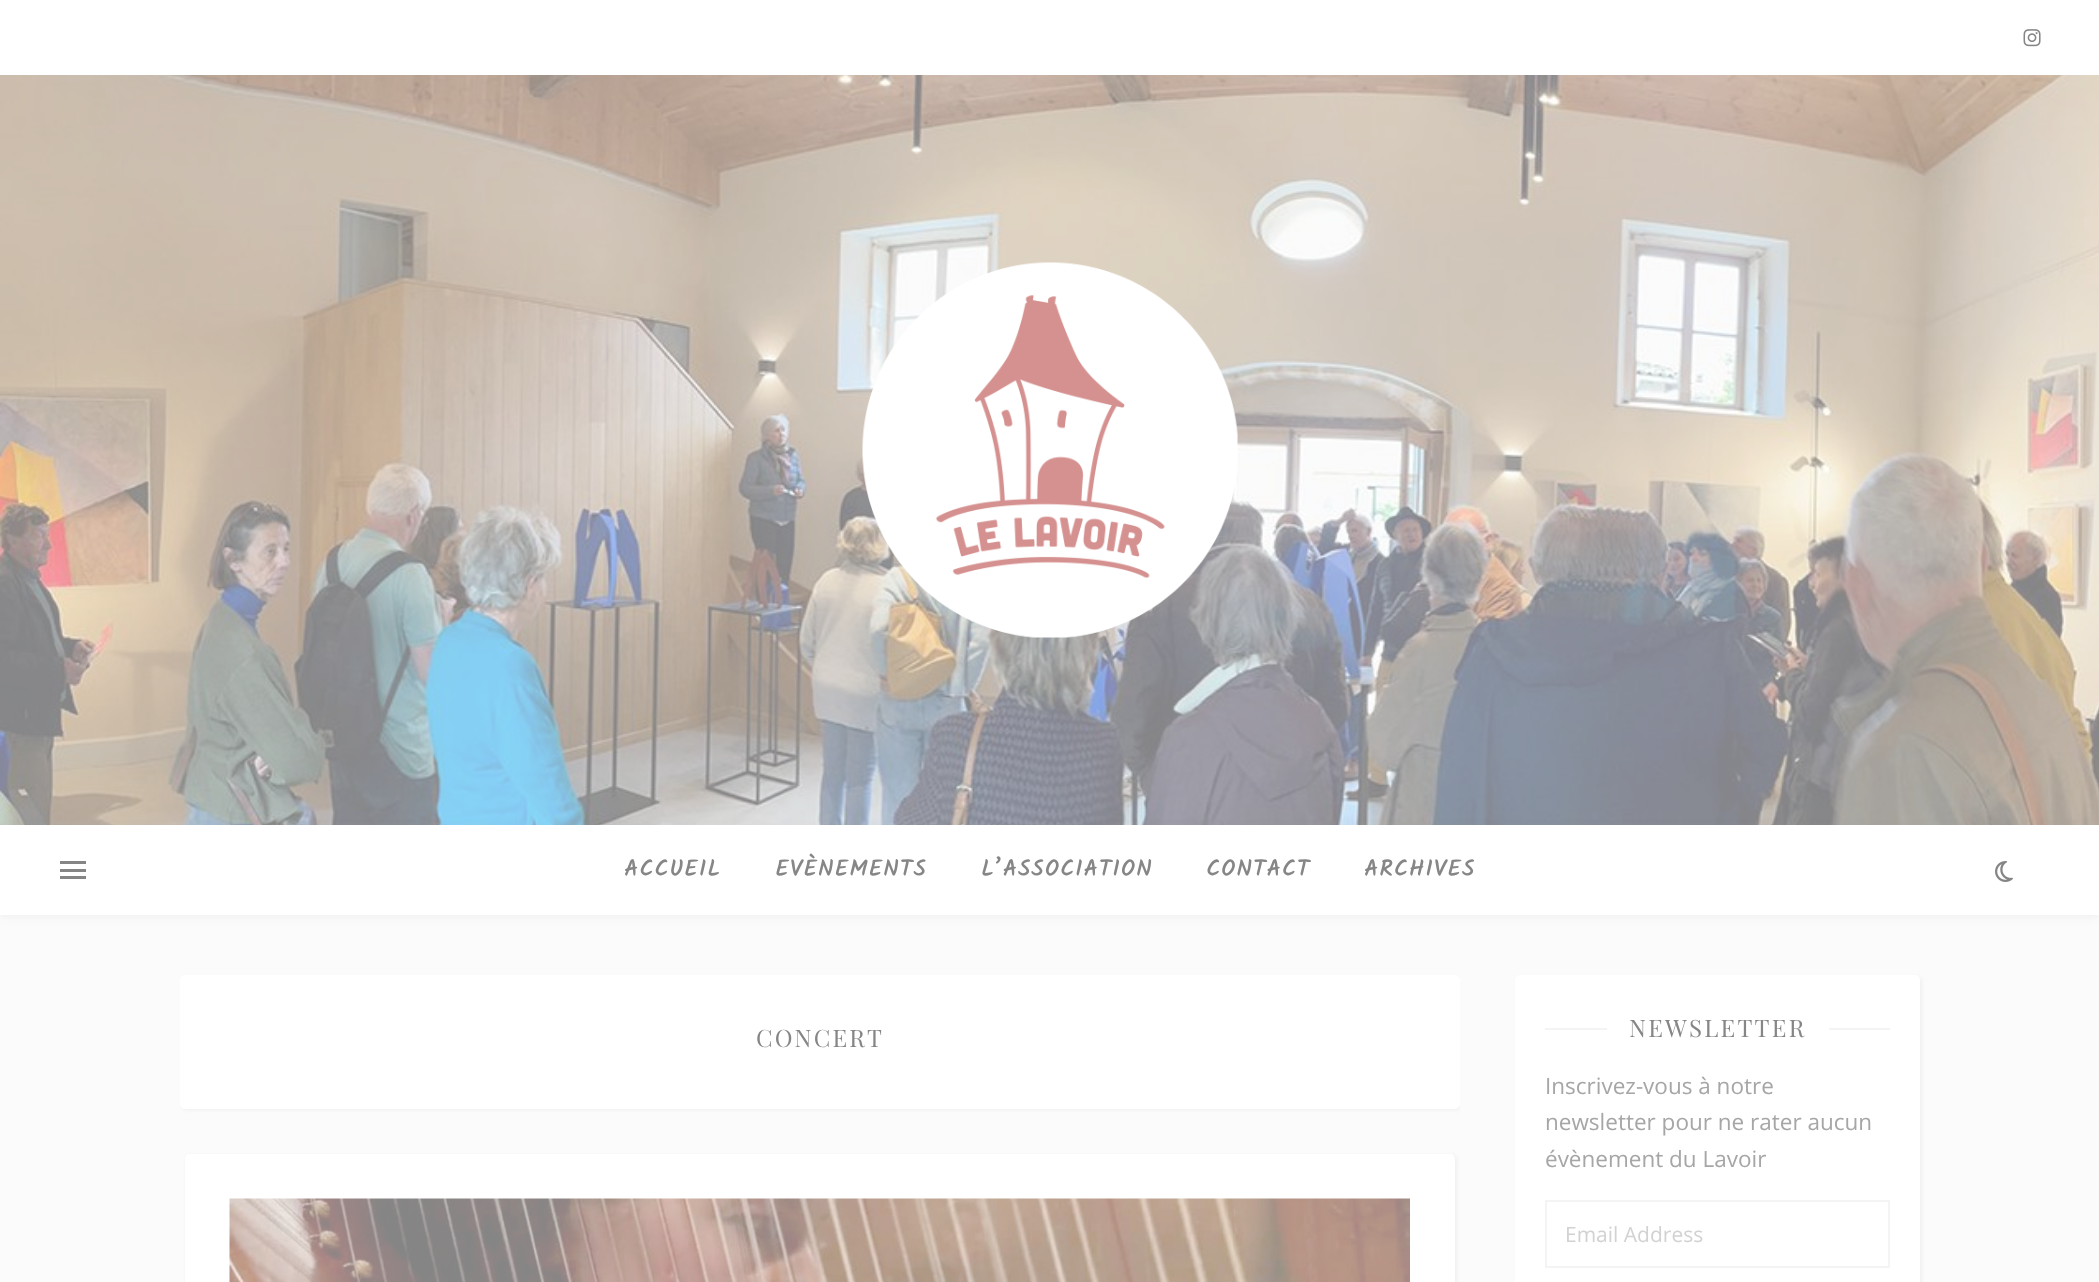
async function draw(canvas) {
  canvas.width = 2099
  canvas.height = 1282
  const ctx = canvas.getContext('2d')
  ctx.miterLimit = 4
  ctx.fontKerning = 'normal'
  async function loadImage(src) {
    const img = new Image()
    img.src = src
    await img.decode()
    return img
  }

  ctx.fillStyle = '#fbfbfb'
  ctx.fillRect(0, 0, 2099, 1282)
  ctx.fillStyle = '#fff'
  ctx.fillRect(0, 0, 2099, 75)
  ctx.drawImage(await loadImage('image0.png'), 2023, 29, 18, 18)
  ctx.drawImage(await loadImage('image1.png'), 0, 75, 2099, 750)
  ctx.drawImage(await loadImage('image2.png'), 862, 262, 376, 376)
  ctx.fillStyle = '#8585851a'
  ctx.filter = 'blur(4px)'
  ctx.beginPath()
  ctx.rect(0, 827, 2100, 90)
  ctx.fill()
  ctx.filter = 'none'
  ctx.fillStyle = '#fff'
  ctx.fillRect(0, 825, 2099, 90)
  ctx.fillStyle = '#858585'
  ctx.fillRect(60, 861, 26, 3)
  ctx.fillRect(60, 869, 26, 3)
  ctx.fillRect(60, 876, 26, 3)
  ctx.letterSpacing = '1.5px'
  ctx.font = 'bold 22.5px Kalam'
  ctx.fillStyle = '#868686'
  ctx.fillText('ACCUEIL', 624, 876)
  ctx.fillText('EVÈNEMENTS', 775, 876)
  ctx.fillText('L’ASSOCIATION', 981, 876)
  ctx.fillText('CONTACT', 1206, 876)
  ctx.fillText('ARCHIVES', 1364, 876)
  ctx.drawImage(await loadImage('image3.png'), 1995, 861, 18, 21)
  ctx.save()
  ctx.beginPath()
  ctx.rect(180, 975, 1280, 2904)
  ctx.clip()
  ctx.fillStyle = '#8585851a'
  ctx.filter = 'blur(2px)'
  ctx.beginPath()
  ctx.roundRect(182, 977, 1279, 133, 5)
  ctx.fill()
  ctx.filter = 'none'
  ctx.restore()
  ctx.fillStyle = '#fff'
  ctx.beginPath()
  ctx.roundRect(180, 975, 1280, 134, 5)
  ctx.fill()
  ctx.letterSpacing = '2.25px'
  ctx.font = '24px Playfair Display'
  ctx.fillStyle = '#868686'
  ctx.fillText('CONCERT', 756, 1047)
  ctx.fillStyle = '#8585851a'
  ctx.filter = 'blur(2px)'
  ctx.beginPath()
  ctx.roundRect(186, 1155, 1271, 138, 5)
  ctx.fill()
  ctx.filter = 'none'
  ctx.fillStyle = '#fff'
  ctx.beginPath()
  ctx.roundRect(185, 1154, 1270, 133, 5)
  ctx.fill()
  ctx.drawImage(await loadImage('image4.png'), 229, 1198, 1181, 84)
  ctx.fillStyle = '#8585851a'
  ctx.filter = 'blur(2px)'
  ctx.beginPath()
  ctx.roundRect(1517, 977, 405, 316, 5)
  ctx.fill()
  ctx.filter = 'none'
  ctx.fillStyle = '#fff'
  ctx.beginPath()
  ctx.roundRect(1515, 975, 405, 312, 5)
  ctx.fill()
  ctx.fillStyle = '#f4f4f4'
  ctx.fillRect(1545, 1028, 62, 2)
  ctx.fillStyle = '#868686'
  ctx.fillText('NEWSLETTER', 1629, 1037)
  ctx.fillStyle = '#f4f4f4'
  ctx.fillRect(1829, 1028, 61, 2)
  ctx.letterSpacing = '0px'
  ctx.font = '22.5px Open Sans'
  ctx.fillStyle = '#a6a6a6'
  ctx.fillText('Inscrivez-vous à notre', 1545, 1094)
  ctx.fillText('newsletter pour ne rater aucun', 1545, 1130)
  ctx.fillText('évènement du Lavoir', 1545, 1167)
  ctx.strokeStyle = '#f4f4f4'
  ctx.lineWidth = 2
  ctx.strokeRect(1546, 1201, 343, 66)
  ctx.font = '21px Open Sans'
  ctx.fillStyle = '#d2d2d2'
  ctx.fillText('Email Address', 1565, 1242)
}

draw(document.querySelector('canvas'))
